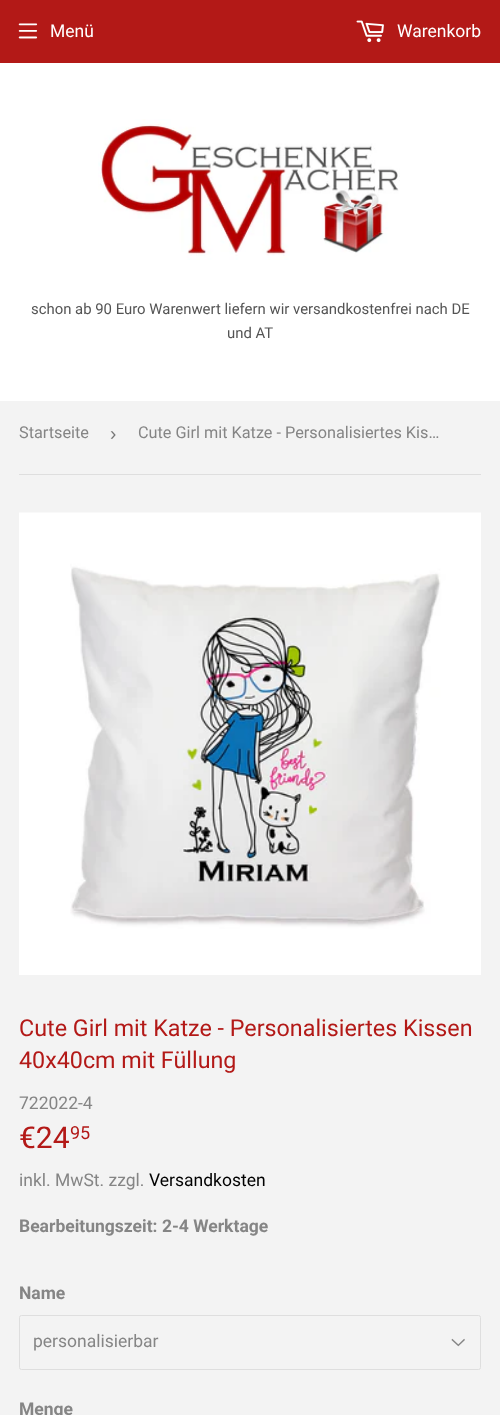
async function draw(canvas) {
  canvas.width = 500
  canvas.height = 1415
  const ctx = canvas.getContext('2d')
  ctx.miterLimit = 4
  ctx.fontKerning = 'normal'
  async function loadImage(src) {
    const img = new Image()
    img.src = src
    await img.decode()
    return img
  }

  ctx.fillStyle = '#f3f3f3'
  ctx.fillRect(0, 0, 500, 1415)
  ctx.fillStyle = '#b31917'
  ctx.fillRect(0, 0, 500, 63)
  ctx.drawImage(await loadImage('image0.png'), 18, 23, 20, 16)
  ctx.font = '17.5px Roboto'
  ctx.fillStyle = '#fff'
  ctx.fillText('Menü', 50, 37)
  ctx.drawImage(await loadImage('image1.png'), 356, 20, 28, 23)
  ctx.fillText('Warenkorb', 397, 37)
  ctx.fillRect(0, 63, 500, 338)
  ctx.drawImage(await loadImage('image2.png'), 98, 119, 302, 141)
  ctx.font = '14.9px Roboto'
  ctx.fillStyle = '#545454'
  ctx.fillText('schon ab 90 Euro Warenwert liefern wir versandkostenfrei nach DE', 31, 314)
  ctx.fillText('und AT', 227, 338)
  ctx.fillStyle = '#dedede'
  ctx.fillRect(19, 474, 462, 1)
  ctx.font = '16.25px Roboto'
  ctx.fillStyle = '#858585'
  ctx.fillText('Startseite', 19, 438)
  ctx.font = '19px Liberation Sans'
  ctx.fillStyle = '#767676'
  ctx.fillText('›', 110, 440)
  ctx.font = '16.25px Roboto'
  ctx.fillStyle = '#858585'
  ctx.fillText('Cute Girl mit Katze - Personalisiertes Kis…', 138, 438)
  ctx.drawImage(await loadImage('image3.png'), 19, 512, 462, 463)
  ctx.font = '23.3px Roboto'
  ctx.fillStyle = '#b31917'
  ctx.fillText('Cute Girl mit Katze - Personalisiertes Kissen', 19, 1036)
  ctx.fillText('40x40cm mit Füllung', 19, 1068)
  ctx.font = '17.5px Roboto'
  ctx.fillStyle = '#858585'
  ctx.fillText('722022-4', 19, 1109)
  ctx.font = '30px Roboto'
  ctx.fillStyle = '#b31917'
  ctx.fillText('€24', 19, 1148)
  ctx.font = '18px Roboto'
  ctx.fillText('95', 70, 1139)
  ctx.font = '17.5px Roboto'
  ctx.fillStyle = '#858585'
  ctx.fillText('inkl. MwSt. zzgl.', 19, 1186)
  ctx.fillStyle = '#000'
  ctx.fillText('Versandkosten', 149, 1186)
  ctx.font = 'bold 17.5px Roboto'
  ctx.fillStyle = '#858585'
  ctx.fillText('Bearbeitungszeit: 2-4 Werktage', 19, 1232)
  ctx.fillText('Name', 19, 1299)
  ctx.drawImage(await loadImage('image4.png'), 451, 1338, 14, 9)
  ctx.beginPath()
  ctx.roundRect(19.5, 1315.5, 461, 54, 2)
  ctx.strokeStyle = '#dedede'
  ctx.stroke()
  ctx.font = '17.5px Roboto'
  ctx.fillText('personalisierbar', 33, 1347)
  ctx.font = 'bold 17.5px Roboto'
  ctx.fillText('Menge', 19, 1415)
}

draw(document.querySelector('canvas'))
